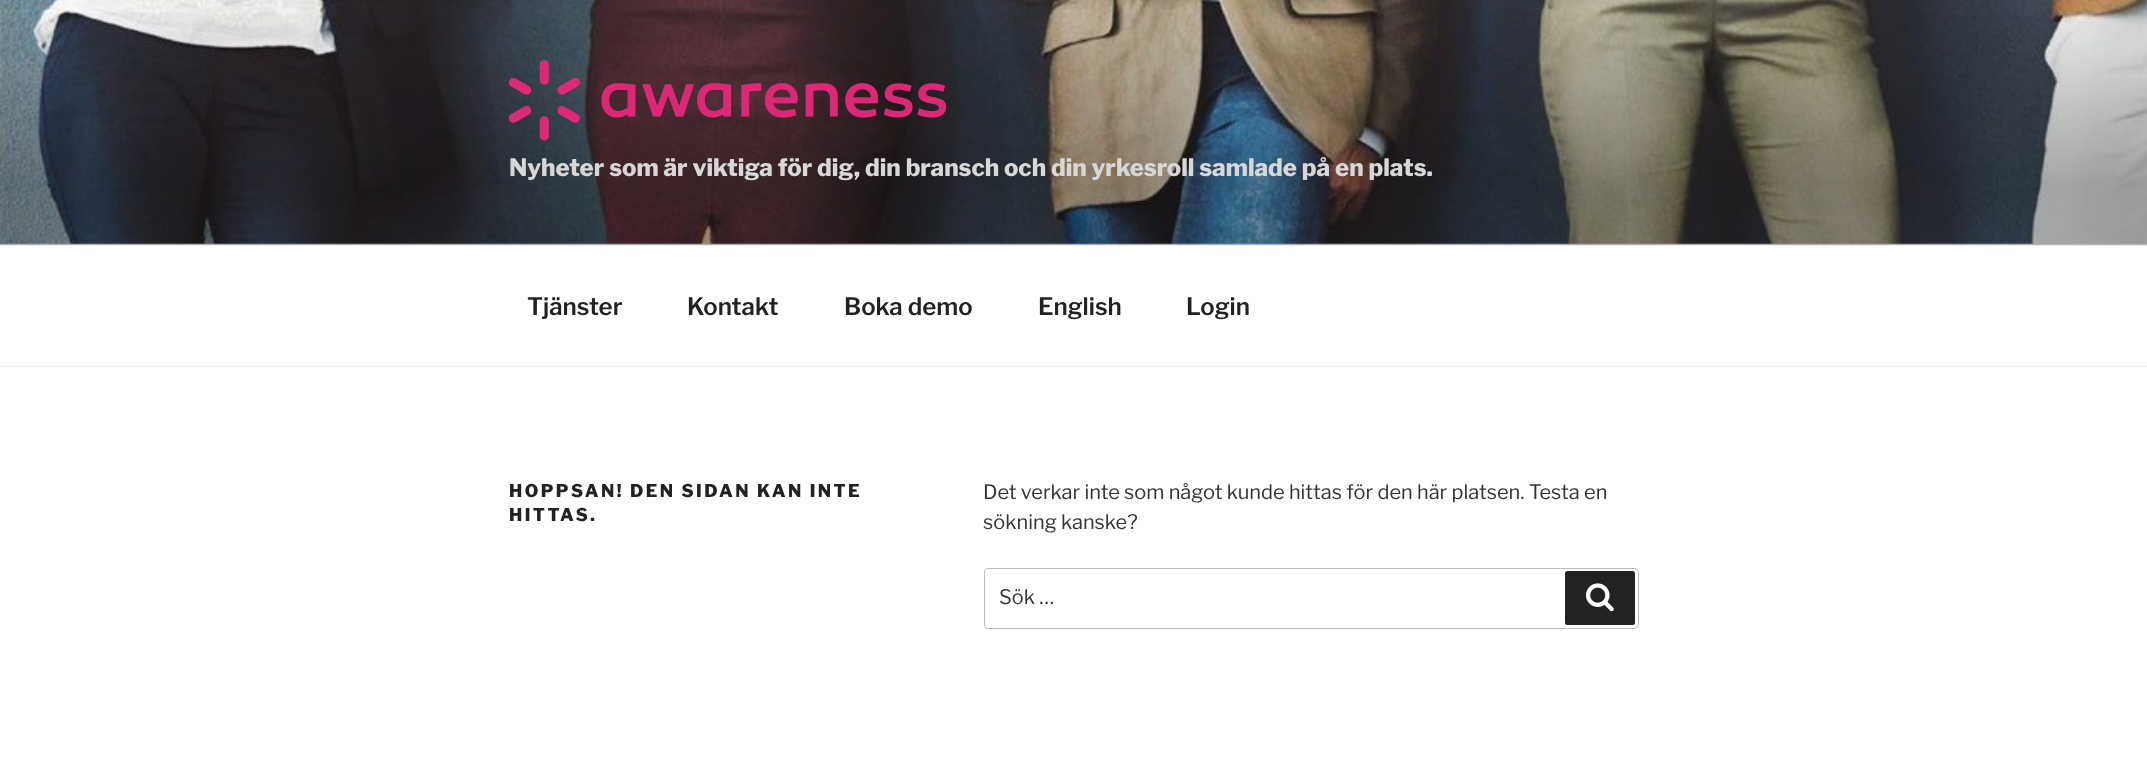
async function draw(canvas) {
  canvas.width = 2147
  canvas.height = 777
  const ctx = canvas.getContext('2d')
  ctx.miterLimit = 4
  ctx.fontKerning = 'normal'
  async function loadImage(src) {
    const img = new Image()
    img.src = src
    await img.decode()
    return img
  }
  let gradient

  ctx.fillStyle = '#fff'
  ctx.fillRect(0, 0, 2147, 777)
  ctx.fillStyle = '#fafafa'
  ctx.fillRect(0, 243, 2147, 2)
  ctx.drawImage(await loadImage('image0.png'), 0, 0, 2147, 244)
  gradient = ctx.createLinearGradient(1074, 0, 1074, 245)
  gradient.addColorStop(0, '#00000000')
  gradient.addColorStop(0.75, '#0000004d')
  gradient.addColorStop(1, '#0000004d')
  ctx.fillStyle = gradient
  ctx.fillRect(0, 13, 2147, 232)
  ctx.drawImage(await loadImage('image1.png'), 509, 60, 437, 81)
  ctx.font = '800 24px Libre Franklin'
  ctx.fillStyle = '#d8d7d8'
  ctx.fillText('Nyheter som är viktiga för dig, din bransch och din yrkesroll samlade på en plats.', 509, 176)
  ctx.fillStyle = '#eee'
  ctx.fillRect(0, 245, 2147, 1)
  ctx.fillRect(0, 366, 2147, 1)
  ctx.font = '600 24px Libre Franklin'
  ctx.fillStyle = '#222'
  ctx.fillText('Tjänster', 527, 315)
  ctx.fillText('Kontakt', 687, 315)
  ctx.fillText('Boka demo', 844, 315)
  ctx.fillText('English', 1038, 315)
  ctx.fillText('Login', 1186, 315)
  ctx.letterSpacing = '2.45px'
  ctx.font = '800 17.5px Libre Franklin'
  ctx.fillText('HOPPSAN! DEN SIDAN KAN INTE', 509, 497)
  ctx.fillText('HITTAS.', 509, 521)
  ctx.letterSpacing = '0px'
  ctx.font = '20px Libre Franklin'
  ctx.fillStyle = '#333'
  ctx.fillText('Det verkar inte som något kunde hittas för den här platsen. Testa en', 983, 499)
  ctx.fillText('sökning kanske?', 983, 529)
  ctx.beginPath()
  ctx.roundRect(984.5, 568.5, 654, 60, 3.5)
  ctx.strokeStyle = '#bbb'
  ctx.stroke()
  ctx.fillText('Sök …', 999, 604)
  ctx.fillStyle = '#222'
  ctx.beginPath()
  ctx.roundRect(1565, 571, 70, 54, 2.5)
  ctx.fill()
  ctx.drawImage(await loadImage('image2.png'), 1585, 583, 29, 28)
}

draw(document.querySelector('canvas'))
